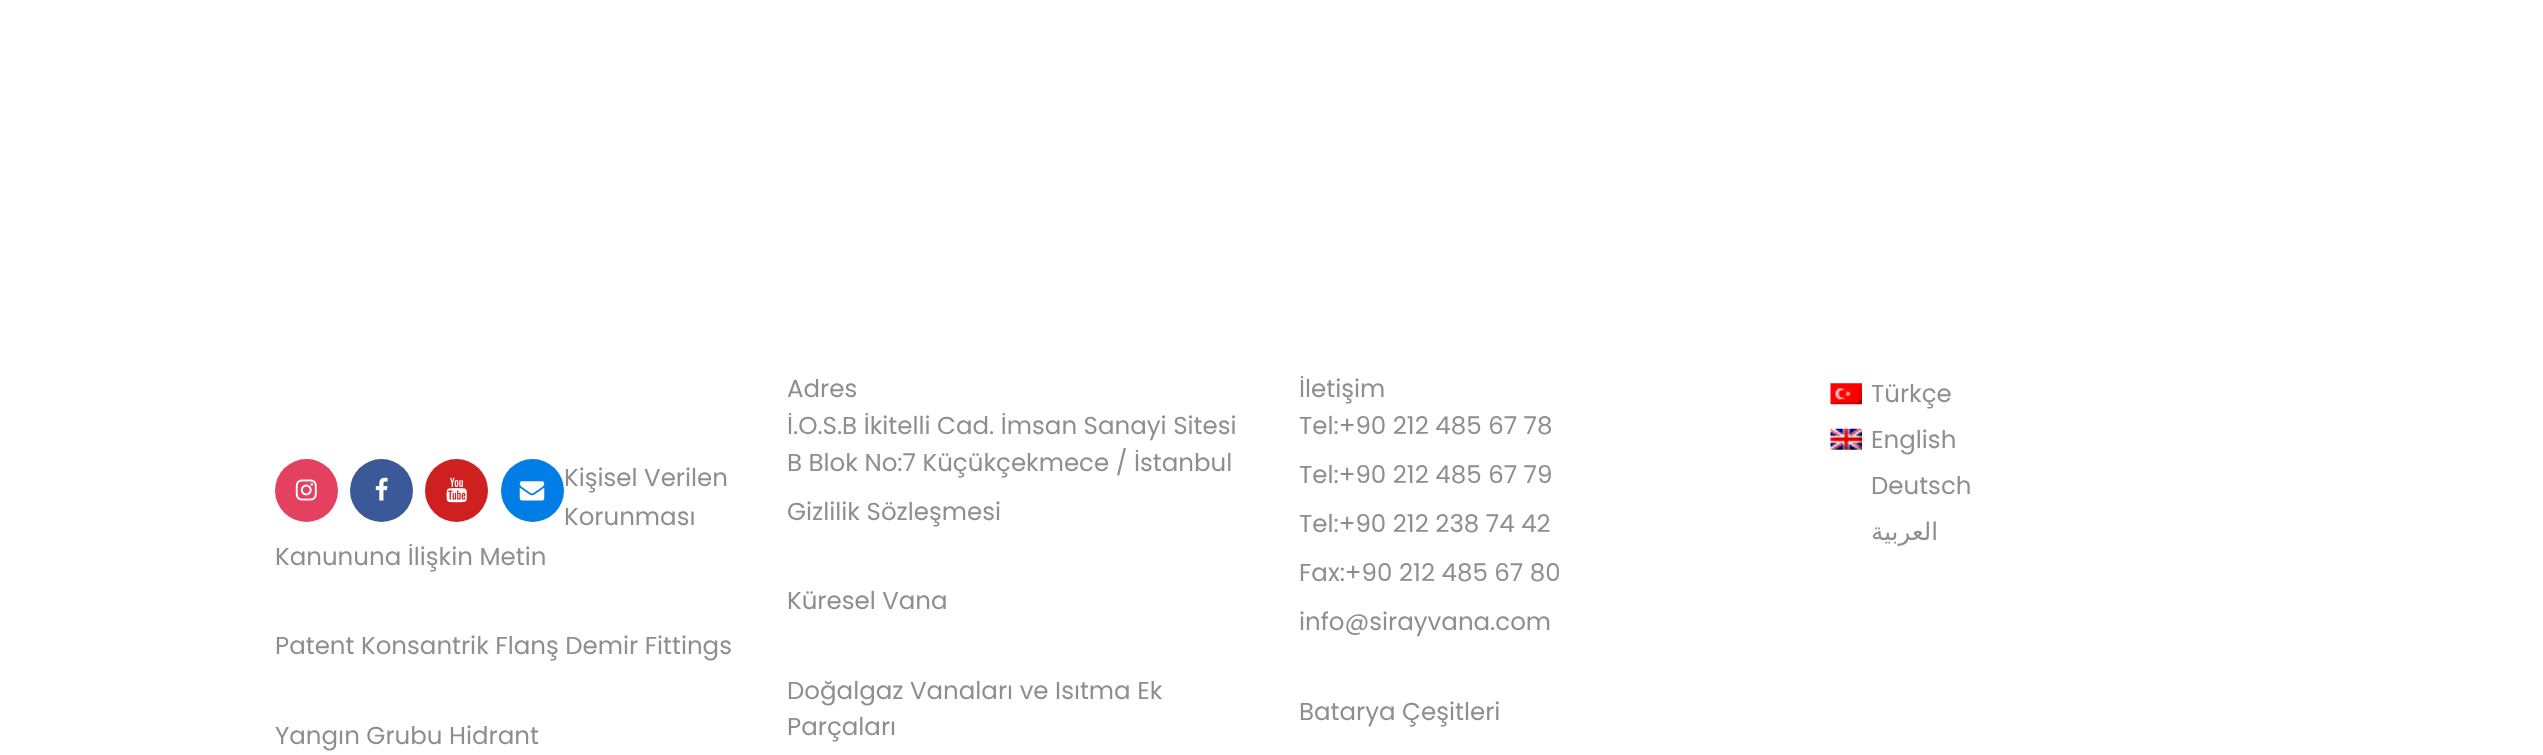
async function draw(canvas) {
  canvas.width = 2543
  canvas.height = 755
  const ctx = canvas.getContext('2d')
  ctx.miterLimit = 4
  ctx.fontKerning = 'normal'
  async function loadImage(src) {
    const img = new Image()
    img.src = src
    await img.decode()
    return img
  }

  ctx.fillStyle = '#fff'
  ctx.fillRect(0, 0, 2543, 755)
  ctx.fillStyle = '#e4405f'
  ctx.beginPath()
  ctx.arc(306.5, 490.5, 31.5, 0, 2 * Math.PI)
  ctx.fill()
  ctx.drawImage(await loadImage('image0.png'), 295, 479, 22, 22)
  ctx.fillStyle = '#3b5999'
  ctx.beginPath()
  ctx.arc(381.5, 490.5, 31.5, 0, 2 * Math.PI)
  ctx.fill()
  ctx.drawImage(await loadImage('image1.png'), 375, 477, 13, 24)
  ctx.fillStyle = '#cd201f'
  ctx.beginPath()
  ctx.arc(456.5, 490.5, 31.5, 0, 2 * Math.PI)
  ctx.fill()
  ctx.drawImage(await loadImage('image2.png'), 446, 477, 21, 26)
  ctx.fillStyle = '#007ee5'
  ctx.beginPath()
  ctx.arc(532.5, 490.5, 31.5, 0, 2 * Math.PI)
  ctx.fill()
  ctx.drawImage(await loadImage('image3.png'), 519, 481, 26, 20)
  ctx.font = '24.5px Poppins'
  ctx.fillStyle = '#8e8e8e'
  ctx.fillText('Kişisel Verilen', 564, 486)
  ctx.fillText('Korunması', 564, 525)
  ctx.fillText('Kanununa İlişkin Metin', 275, 565)
  ctx.fillText('Patent Konsantrik Flanş Demir Fittings', 275, 654)
  ctx.fillText('Yangın Grubu Hidrant', 275, 744)
  ctx.fillText('Adres', 787, 397)
  ctx.fillText('İ.O.S.B İkitelli Cad. İmsan Sanayi Sitesi', 787, 434)
  ctx.fillText('B Blok No:7 Küçükçekmece / İstanbul', 787, 471)
  ctx.fillText('Gizlilik Sözleşmesi', 787, 520)
  ctx.fillText('Küresel Vana', 787, 609)
  ctx.fillText('Doğalgaz Vanaları ve Isıtma Ek', 787, 699)
  ctx.fillText('Parçaları', 787, 735)
  ctx.fillText('İletişim', 1299, 397)
  ctx.fillText('Tel:+90 212 485 67 78', 1299, 434)
  ctx.fillText('Tel:+90 212 485 67 79', 1299, 483)
  ctx.fillText('Tel:+90 212 238 74 42', 1299, 532)
  ctx.fillText('Fax:+90 212 485 67 80', 1299, 581)
  ctx.fillText('info@sirayvana.com', 1299, 630)
  ctx.fillText('Batarya Çeşitleri', 1299, 720)
  ctx.drawImage(await loadImage('image4.png'), 1830, 383, 32, 22)
  ctx.fillText('Türkçe', 1871, 402)
  ctx.drawImage(await loadImage('image5.png'), 1830, 428, 32, 22)
  ctx.fillText('English', 1871, 448)
  ctx.fillText('Deutsch', 1871, 494)
  ctx.direction = 'rtl'
  ctx.font = '24.5px DejaVu Sans'
  ctx.fillText('العربية', 1938, 540)
}

draw(document.querySelector('canvas'))
